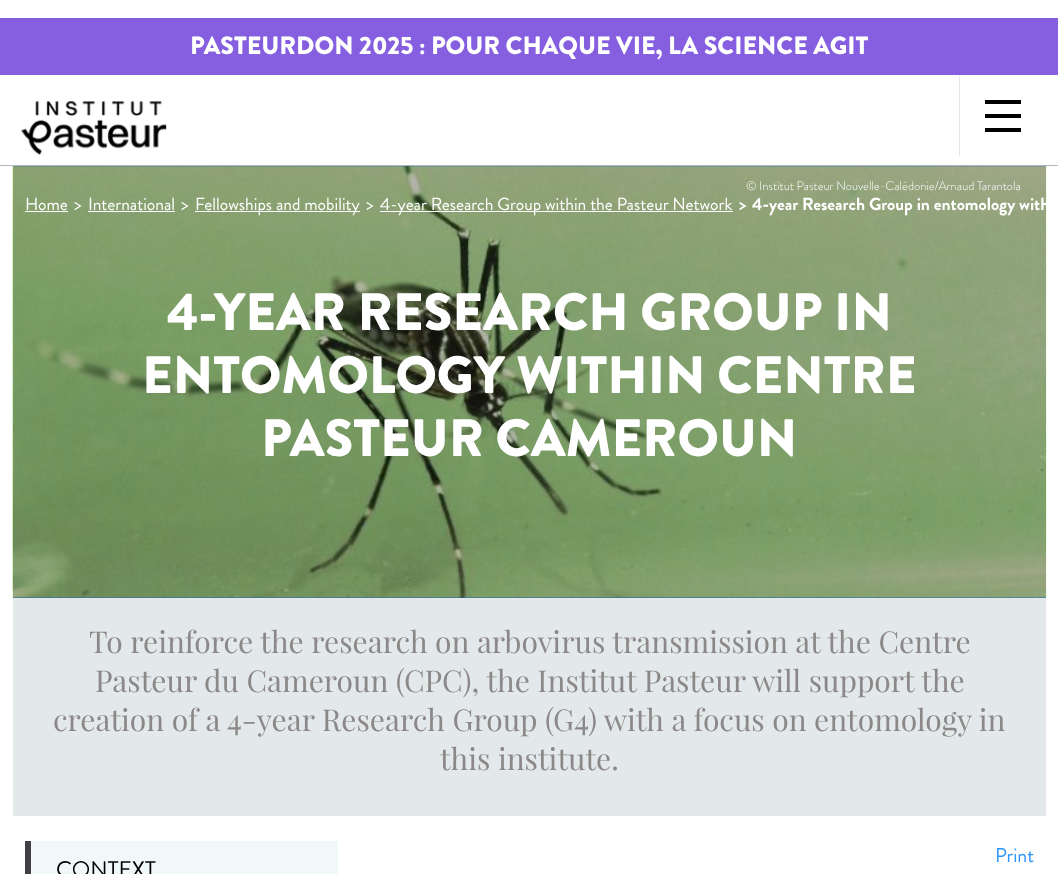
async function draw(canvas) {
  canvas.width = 1058
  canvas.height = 874
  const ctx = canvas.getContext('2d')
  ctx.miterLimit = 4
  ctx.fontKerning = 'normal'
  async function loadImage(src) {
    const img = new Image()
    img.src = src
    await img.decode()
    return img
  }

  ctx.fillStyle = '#fff'
  ctx.fillRect(0, 0, 1058, 874)
  ctx.fillStyle = '#855fe0'
  ctx.fillRect(0, 18, 1058, 57)
  ctx.font = '900 25px Brandon Grotesque'
  ctx.fillStyle = '#fff'
  ctx.fillText('PASTEURDON 2025 : POUR CHAQUE VIE, LA SCIENCE AGIT', 190, 54)
  ctx.fillStyle = '#aeb7c0'
  ctx.fillRect(0, 165, 1058, 1)
  ctx.drawImage(await loadImage('image0.png'), 21, 101, 146, 54)
  ctx.fillStyle = '#e3e9eb'
  ctx.fillRect(959, 75, 1, 81)
  ctx.fillStyle = '#000'
  ctx.fillRect(985, 114, 36, 4)
  ctx.fillRect(985, 100, 36, 4)
  ctx.fillRect(985, 128, 36, 4)
  ctx.fillStyle = '#1f69af'
  ctx.fillRect(13, 166, 1033, 432)
  ctx.drawImage(await loadImage('image1.png'), 12, 166, 1035, 432)
  ctx.font = '300 12.5px Brandon Grotesque'
  ctx.fillStyle = '#fff'
  ctx.fillText('© Institut Pasteur Nouvelle-Calédonie/Arnaud Tarantola', 746, 190)
  ctx.font = '900 52.5px Brandon Grotesque'
  ctx.fillText('4-YEAR RESEARCH GROUP IN', 167, 330)
  ctx.fillText('ENTOMOLOGY WITHIN CENTRE', 142, 393)
  ctx.fillText('PASTEUR CAMEROUN', 261, 456)
  ctx.fillStyle = '#e3e9eb'
  ctx.fillRect(13, 598, 1033, 218)
  ctx.font = '30px Playfair Display'
  ctx.fillStyle = '#8d8888'
  ctx.fillText('To reinforce the research on arbovirus transmission at the Centre', 89, 653)
  ctx.fillText('Pasteur du Cameroun (CPC), the Institut Pasteur will support the', 95, 692)
  ctx.fillText('creation of a 4-year Research Group (G4) with a focus on entomology in', 53, 731)
  ctx.fillText('this institute.', 440, 770)
  ctx.font = '20px Brandon Grotesque'
  ctx.fillStyle = '#2d96fa'
  ctx.fillText('Print', 995, 862)
  ctx.fillStyle = '#f0f8fa'
  ctx.fillRect(31, 841, 307, 33)
  ctx.fillStyle = '#414144'
  ctx.fillRect(25, 841, 6, 33)
  ctx.font = '22.5px Brandon Grotesque'
  ctx.fillStyle = '#000'
  ctx.fillText('CONTEXT', 56, 877)
  ctx.font = '17.5px Brandon Grotesque'
  ctx.fillStyle = '#fff'
  ctx.fillText('Home', 25, 210)
  ctx.fillRect(25, 211, 43, 1)
  ctx.fillText('>', 74, 210)
  ctx.fillText('International', 88, 210)
  ctx.fillRect(88, 211, 87, 1)
  ctx.fillText('>', 181, 210)
  ctx.fillRect(195, 211, 165, 1)
  ctx.fillText('Fellowships and mobility', 195, 210)
  ctx.fillText('>', 366, 210)
  ctx.fillRect(380, 211, 353, 1)
  ctx.fillText('4-year Research Group within the Pasteur Network', 380, 210)
  ctx.font = 'bold 17.5px Brandon Grotesque'
  ctx.fillText('>', 739, 210)
  ctx.fillText('4-year Research Group in entomology with', 752, 210)
}

draw(document.querySelector('canvas'))
